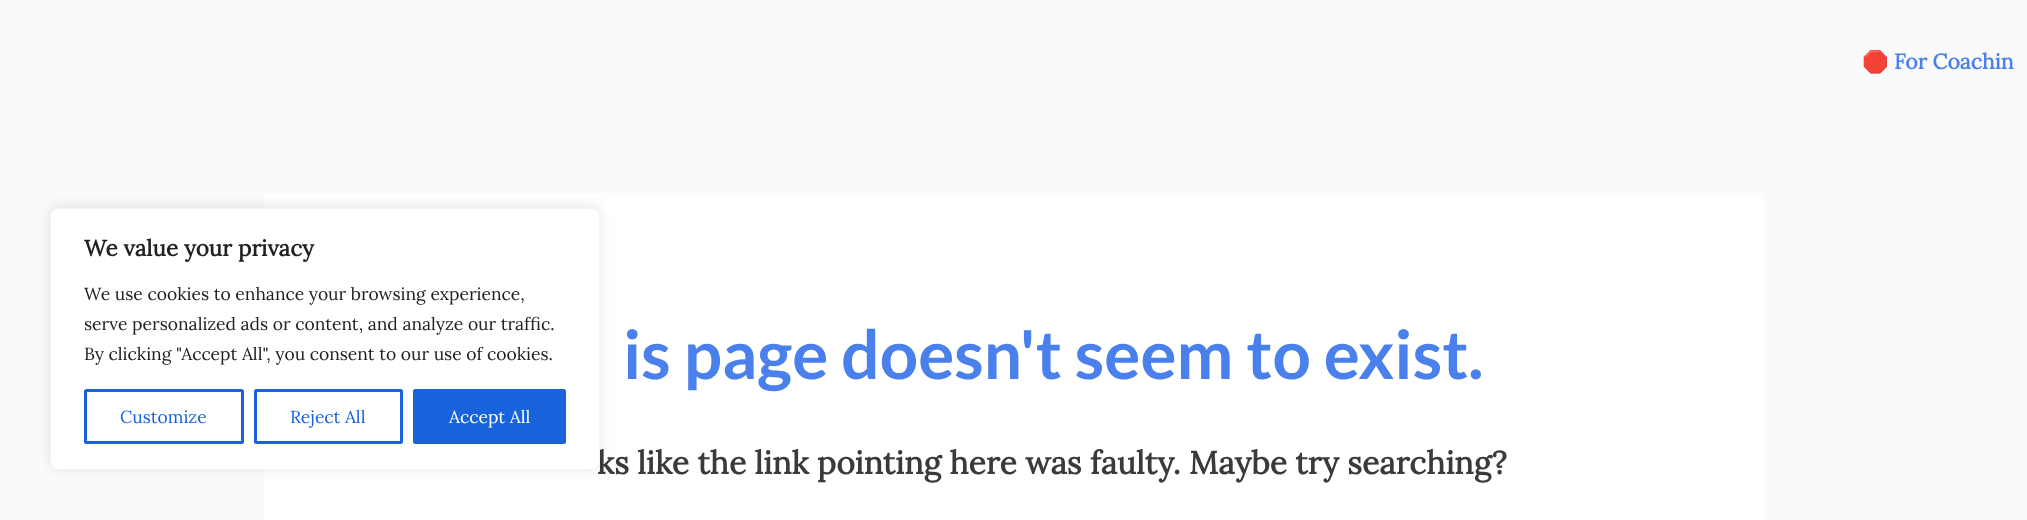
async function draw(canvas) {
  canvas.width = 2027
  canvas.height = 520
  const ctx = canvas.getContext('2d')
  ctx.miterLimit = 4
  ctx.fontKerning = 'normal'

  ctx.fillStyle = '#fafafa'
  ctx.fillRect(0, 0, 2027, 520)
  ctx.fillStyle = '#fff'
  ctx.fillRect(264, 193, 1500, 327)
  ctx.fillStyle = '#acabab4d'
  ctx.filter = 'blur(6px)'
  ctx.beginPath()
  ctx.roundRect(50, 206, 550, 263, 8)
  ctx.fill()
  ctx.filter = 'none'
  ctx.font = 'bold 31.9px Lora'
  ctx.fillStyle = '#3a3a3a'
  ctx.fillText('ks like the link pointing here was faulty. Maybe try searching?', 597, 474)
  ctx.fillStyle = '#fff'
  ctx.beginPath()
  ctx.roundRect(50.5, 208.5, 549, 261, 7.5)
  ctx.fill()
  ctx.strokeStyle = '#f4f4f4'
  ctx.stroke()
  ctx.font = 'bold 22.5px Lora'
  ctx.fillStyle = '#212121'
  ctx.fillText('We value your privacy', 84, 256)
  ctx.font = '17.5px Lora'
  ctx.fillText('We use cookies to enhance your browsing experience,', 84, 300)
  ctx.fillText('serve personalized ads or content, and analyze our traffic.', 84, 330)
  ctx.fillText('By clicking "Accept All", you consent to our use of cookies.', 84, 360)
  ctx.beginPath()
  ctx.roundRect(85.5, 390.5, 157, 52, 1)
  ctx.strokeStyle = '#1863dc'
  ctx.lineWidth = 3
  ctx.stroke()
  ctx.fillStyle = '#1863dc'
  ctx.fillText('Customize', 120, 423)
  ctx.beginPath()
  ctx.roundRect(255.5, 390.5, 146, 52, 1)
  ctx.stroke()
  ctx.fillText('Reject All', 290, 423)
  ctx.beginPath()
  ctx.roundRect(414.5, 390.5, 150, 52, 1)
  ctx.fill()
  ctx.stroke()
  ctx.fillStyle = '#fff'
  ctx.fillText('Accept All', 449, 423)
  ctx.font = 'bold 21.25px Noto Color Emoji'
  ctx.fillStyle = '#4a80ec'
  ctx.fillText('🛑', 1862, 69)
  ctx.font = 'bold 21.25px Lora'
  ctx.fillText('For Coachin', 1894, 69)
  ctx.font = 'bold 67.5px Lato'
  ctx.fillText('is page doesn\'t seem to exist.', 623, 379)
}

draw(document.querySelector('canvas'))
